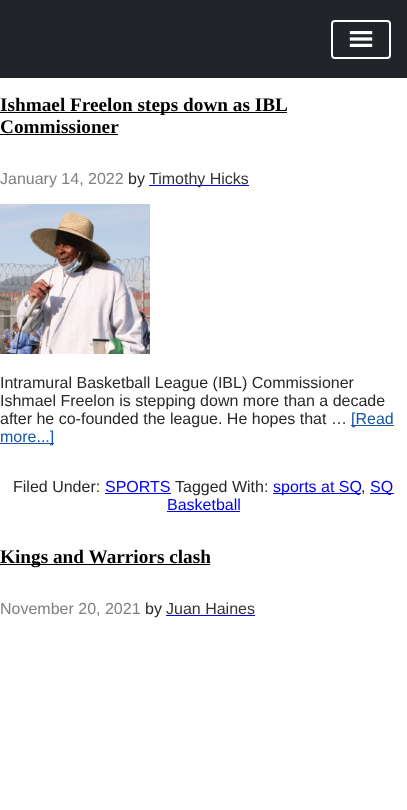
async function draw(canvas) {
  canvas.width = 407
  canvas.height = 810
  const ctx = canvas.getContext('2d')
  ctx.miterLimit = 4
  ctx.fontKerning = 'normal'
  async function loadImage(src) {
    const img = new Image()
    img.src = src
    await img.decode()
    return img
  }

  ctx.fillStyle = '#fff'
  ctx.fillRect(0, 0, 407, 810)
  ctx.fillStyle = '#212529'
  ctx.fillRect(0, 0, 407, 78)
  ctx.beginPath()
  ctx.roundRect(332, 21, 58, 37, 3)
  ctx.strokeStyle = '#fff'
  ctx.lineWidth = 2
  ctx.stroke()
  ctx.drawImage(await loadImage('image0.png'), 349, 31, 24, 16)
  ctx.fillStyle = '#000'
  ctx.fillRect(0, 112, 287, 1)
  ctx.font = 'bold 19.25px Liberation Serif'
  ctx.fillText('Ishmael Freelon steps down as IBL', 0, 111)
  ctx.fillText('Commissioner', 0, 133)
  ctx.fillRect(0, 134, 118, 1)
  ctx.font = '16px Liberation Sans'
  ctx.fillStyle = '#808080'
  ctx.fillText('January 14, 2022', 0, 184)
  ctx.fillStyle = '#282828'
  ctx.fillText('by', 128, 184)
  ctx.fillStyle = '#00e'
  ctx.fillRect(149, 185, 100, 1)
  ctx.fillStyle = '#333'
  ctx.fillText('Timothy Hicks', 149, 184)
  ctx.drawImage(await loadImage('image1.png'), 0, 204, 150, 150)
  ctx.fillStyle = '#282828'
  ctx.fillText('Intramural Basketball League (IBL) Commissioner', 0, 388)
  ctx.fillText('Ishmael Freelon is stepping down more than a decade', 0, 406)
  ctx.fillText('after he co-founded the league. He hopes that …', 0, 424)
  ctx.fillStyle = '#1855a5'
  ctx.fillRect(351, 425, 43, 1)
  ctx.fillText('[Read', 351, 424)
  ctx.fillRect(0, 443, 54, 1)
  ctx.fillText('more...]', 0, 442)
  ctx.fillStyle = '#282828'
  ctx.fillText('Filed Under:', 13, 492)
  ctx.fillStyle = '#00e'
  ctx.fillText('SPORTS', 105, 492)
  ctx.fillRect(105, 493, 66, 1)
  ctx.fillStyle = '#282828'
  ctx.fillText('Tagged With:', 175, 492)
  ctx.fillStyle = '#00e'
  ctx.fillRect(273, 493, 88, 1)
  ctx.fillText('sports at SQ', 273, 492)
  ctx.fillStyle = '#282828'
  ctx.fillText(',', 361, 492)
  ctx.fillStyle = '#00e'
  ctx.fillRect(370, 493, 24, 1)
  ctx.fillText('SQ', 370, 492)
  ctx.fillText('Basketball', 167, 510)
  ctx.fillRect(167, 511, 73, 1)
  ctx.fillStyle = '#000'
  ctx.fillRect(0, 564, 210, 1)
  ctx.font = 'bold 19.25px Liberation Serif'
  ctx.fillText('Kings and Warriors clash', 0, 563)
  ctx.font = '16px Liberation Sans'
  ctx.fillStyle = '#808080'
  ctx.fillText('November 20, 2021', 0, 614)
  ctx.fillStyle = '#282828'
  ctx.fillText('by', 145, 614)
  ctx.fillStyle = '#333'
  ctx.fillText('Juan Haines', 166, 614)
  ctx.fillStyle = '#00e'
  ctx.fillRect(166, 615, 89, 1)
}

draw(document.querySelector('canvas'))
